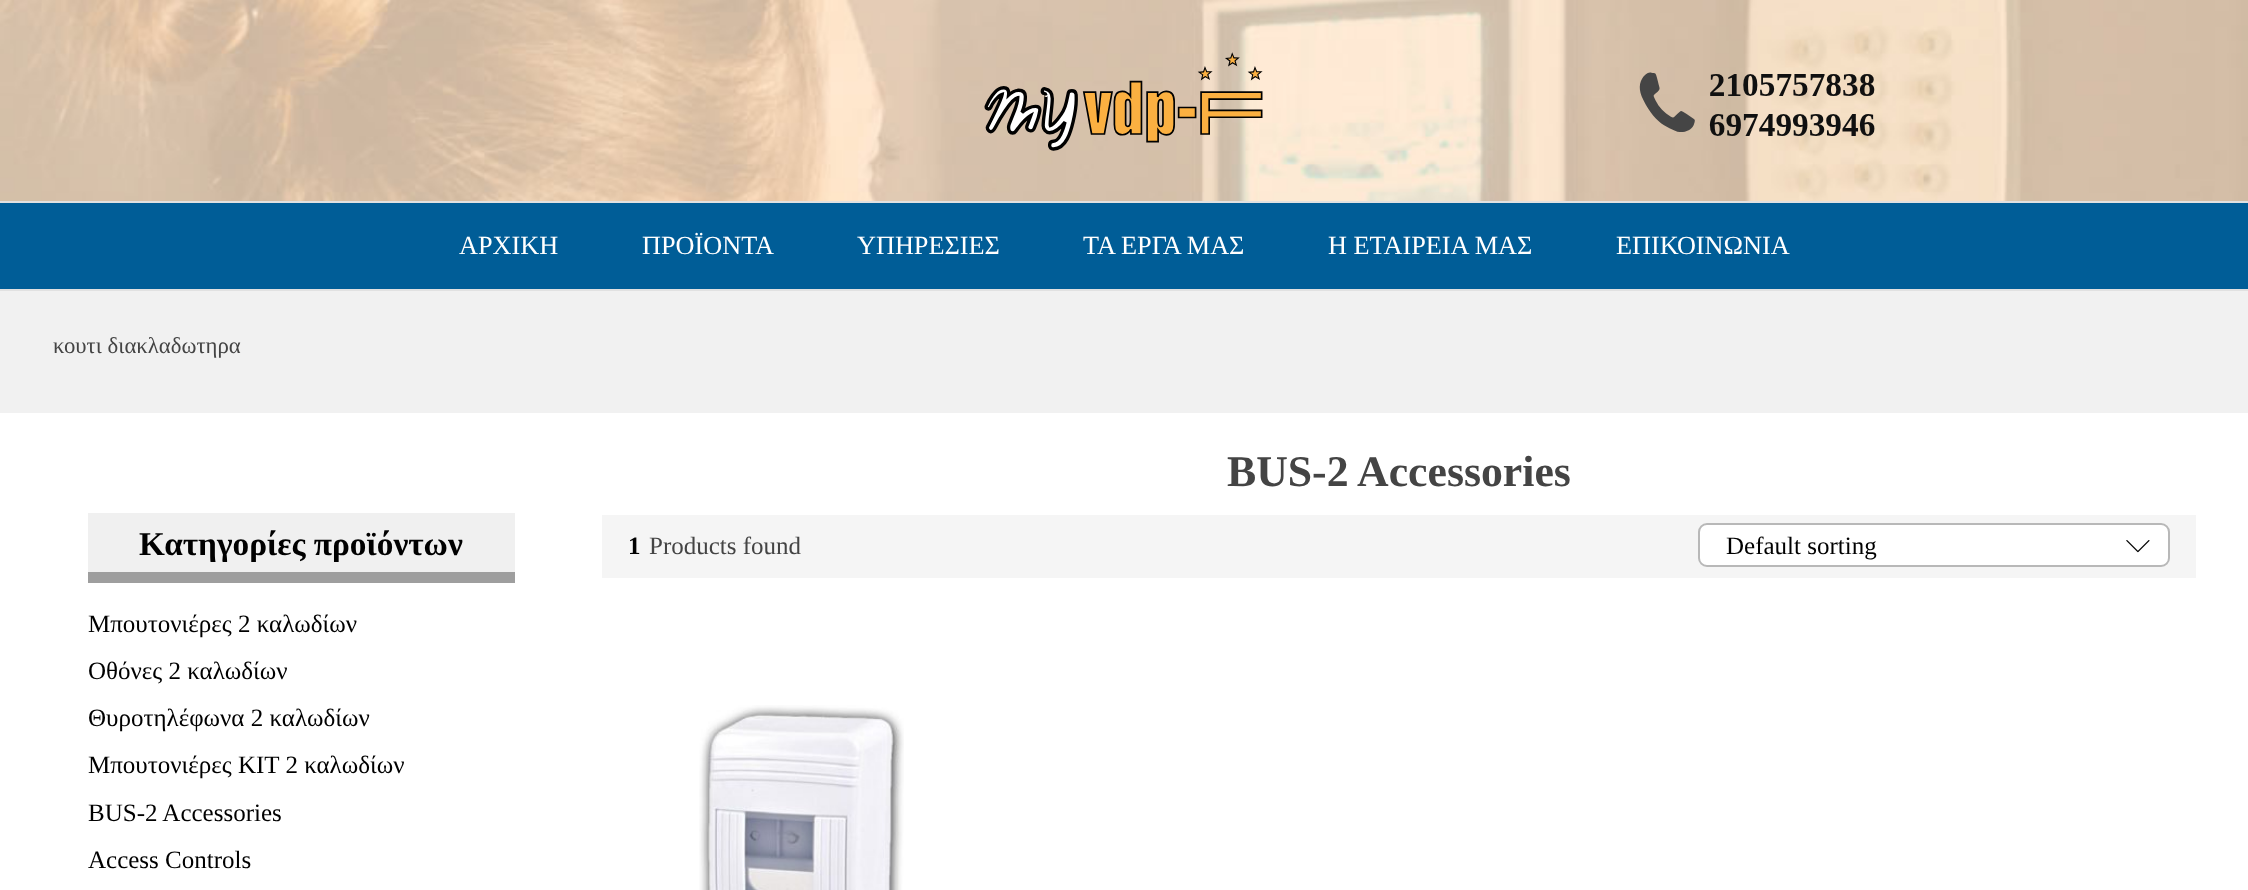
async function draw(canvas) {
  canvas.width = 2248
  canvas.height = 890
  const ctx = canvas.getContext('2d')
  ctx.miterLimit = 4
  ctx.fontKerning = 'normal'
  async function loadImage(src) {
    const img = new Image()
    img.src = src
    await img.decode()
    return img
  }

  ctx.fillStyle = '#fff'
  ctx.fillRect(0, 0, 2248, 890)
  ctx.drawImage(await loadImage('image0.png'), 0, 0, 2248, 201)
  ctx.drawImage(await loadImage('image1.png'), 984, 52, 891, 99)
  ctx.fillStyle = '#005d97'
  ctx.fillRect(0, 203, 2248, 86)
  ctx.fillStyle = '#e1e1e1'
  ctx.fillRect(0, 201, 2248, 2)
  ctx.fillRect(0, 289, 2248, 2)
  ctx.font = '26.25px Liberation Serif'
  ctx.fillStyle = '#fff'
  ctx.fillText('ΑΡΧΙΚΗ', 459, 254)
  ctx.fillText('ΠΡΟΪΟΝΤΑ', 642, 254)
  ctx.fillText('ΥΠΗΡΕΣΙΕΣ', 857, 254)
  ctx.fillText('ΤΑ ΕΡΓΑ ΜΑΣ', 1083, 254)
  ctx.fillText('Η ΕΤΑΙΡΕΙΑ ΜΑΣ', 1328, 254)
  ctx.fillText('ΕΠΙΚΟΙΝΩΝΙΑ', 1616, 254)
  ctx.fillStyle = '#f1f1f1'
  ctx.fillRect(0, 291, 2248, 122)
  ctx.font = '22.75px Liberation Serif'
  ctx.fillStyle = '#444'
  ctx.fillText('κουτι διακλαδωτηρα', 53, 353)
  ctx.font = 'bold 43.75px Liberation Serif'
  ctx.fillText('BUS-2 Accessories', 1227, 486)
  ctx.fillStyle = '#f5f5f5'
  ctx.fillRect(602, 515, 1594, 63)
  ctx.font = 'bold 25px Liberation Serif'
  ctx.fillStyle = '#000'
  ctx.fillText('1', 628, 554)
  ctx.font = '25px Liberation Serif'
  ctx.fillStyle = '#444'
  ctx.fillText('Products found', 649, 554)
  ctx.fillStyle = '#fff'
  ctx.beginPath()
  ctx.roundRect(1699, 524, 470, 42, 8)
  ctx.fill()
  ctx.strokeStyle = '#b8b8b8'
  ctx.lineWidth = 2
  ctx.stroke()
  ctx.fillStyle = '#000'
  ctx.fillText('Default sorting', 1726, 554)
  ctx.drawImage(await loadImage('image2.png'), 2126, 540, 24, 13)
  ctx.drawImage(await loadImage('image3.png'), 699, 705, 205, 185)
  ctx.fillStyle = '#f0f0f0'
  ctx.fillRect(88, 513, 427, 59)
  ctx.fillStyle = '#9e9e9e'
  ctx.fillRect(88, 572, 427, 11)
  ctx.font = 'bold 33.25px Liberation Serif'
  ctx.fillStyle = '#000'
  ctx.fillText('Κατηγορίες προϊόντων', 139, 555)
  ctx.font = '25px Liberation Serif'
  ctx.fillText('Μπουτονιέρες 2 καλωδίων', 88, 632)
  ctx.fillText('Οθόνες 2 καλωδίων', 88, 679)
  ctx.fillText('Θυροτηλέφωνα 2 καλωδίων', 88, 726)
  ctx.fillText('Μπουτονιέρες ΚΙΤ 2 καλωδίων', 88, 773)
  ctx.fillText('BUS-2 Accessories', 88, 821)
  ctx.fillText('Access Controls', 88, 868)
}

draw(document.querySelector('canvas'))
